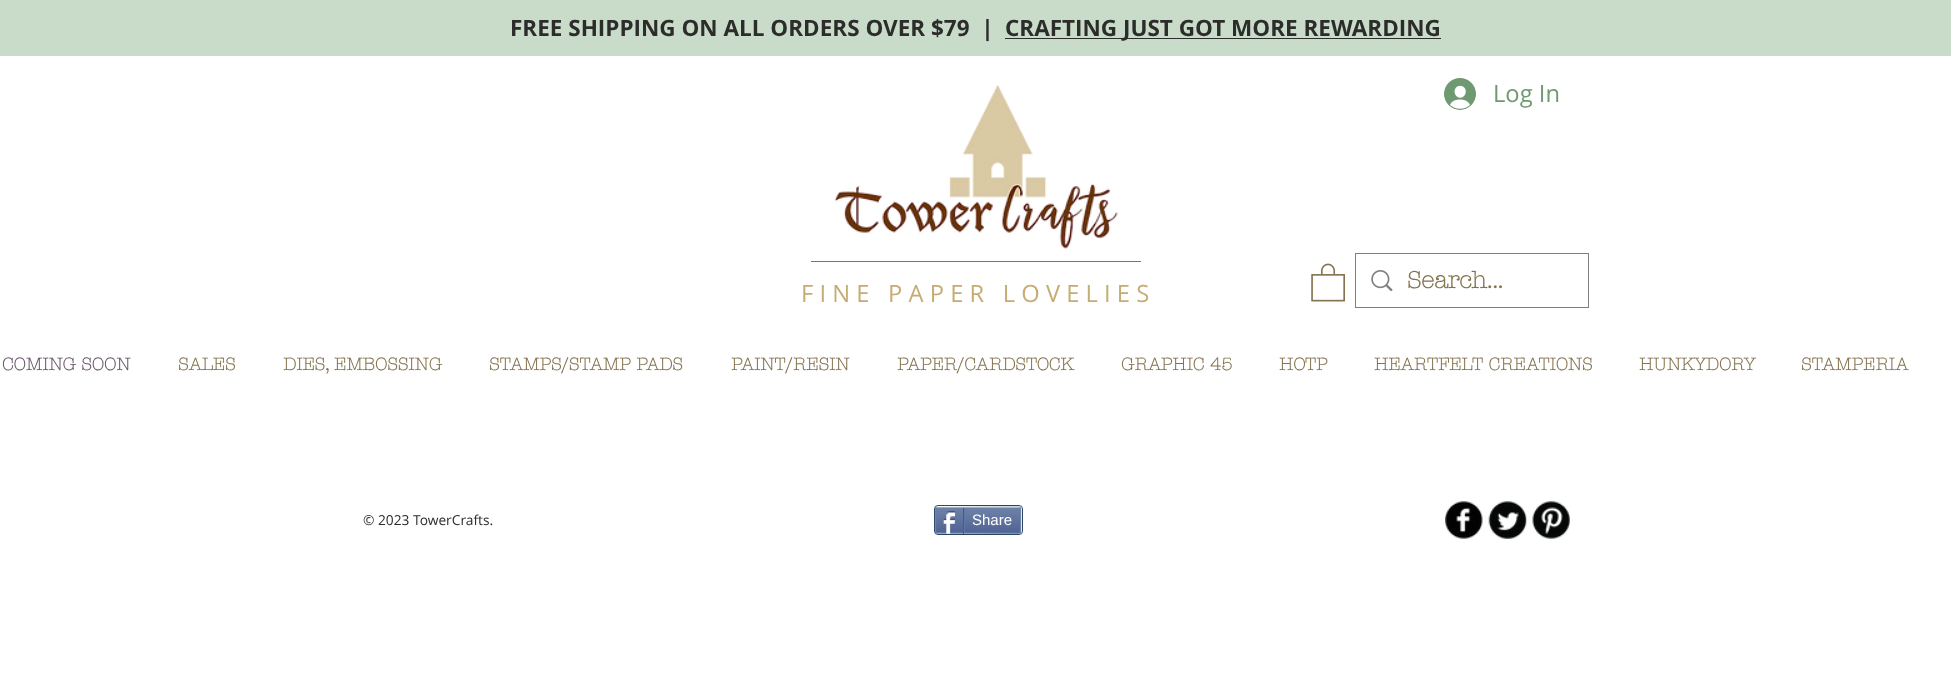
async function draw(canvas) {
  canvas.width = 1951
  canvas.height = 676
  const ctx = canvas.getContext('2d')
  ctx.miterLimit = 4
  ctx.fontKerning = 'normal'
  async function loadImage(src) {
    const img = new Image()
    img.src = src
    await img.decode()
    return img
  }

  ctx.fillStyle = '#fff'
  ctx.fillRect(0, 0, 1951, 676)
  ctx.fillStyle = '#c9dcc9'
  ctx.fillRect(0, 0, 1951, 56)
  ctx.font = 'bold 22.5px Open Sans'
  ctx.fillStyle = '#2c2c2b'
  ctx.fillText('FREE SHIPPING ON ALL ORDERS OVER $79  |', 510, 36)
  ctx.fillRect(1005, 38, 436, 1)
  ctx.fillText('CRAFTING JUST GOT MORE REWARDING', 1005, 36)
  ctx.drawImage(await loadImage('image0.png'), 1444, 78, 32, 32)
  ctx.font = '23.75px Open Sans'
  ctx.fillStyle = '#6f9971'
  ctx.fillText('Log In', 1493, 102)
  ctx.strokeStyle = '#808080'
  ctx.strokeRect(1355.5, 253.5, 233, 54)
  ctx.drawImage(await loadImage('image1.png'), 1371, 270, 22, 21)
  ctx.font = 'bold 23.75px "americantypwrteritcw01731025"'
  ctx.fillStyle = '#84734f'
  ctx.fillText('Search...', 1407, 288)
  ctx.drawImage(await loadImage('image2.png'), 834, 85, 284, 164)
  ctx.fillRect(811, 261, 330, 1)
  ctx.font = '23.75px Open Sans'
  ctx.fillStyle = '#c6ac73'
  ctx.fillText('F I N E   P A P E R   L O V E L I E S', 801, 302)
  ctx.drawImage(await loadImage('image3.png'), 1311, 263, 34, 39)
  ctx.font = 'bold 17.5px "americantypwrteritcw01731025"'
  ctx.fillStyle = '#6b576d'
  ctx.fillText('COMING SOON', 2, 370)
  ctx.fillStyle = '#84734f'
  ctx.fillText('SALES', 178, 370)
  ctx.fillText('DIES, EMBOSSING', 283, 370)
  ctx.fillText('STAMPS/STAMP PADS', 489, 370)
  ctx.fillText('PAINT/RESIN', 731, 370)
  ctx.fillText('PAPER/CARDSTOCK', 897, 370)
  ctx.fillText('GRAPHIC 45', 1121, 370)
  ctx.fillText('HOTP', 1279, 370)
  ctx.fillText('HEARTFELT CREATIONS', 1374, 370)
  ctx.fillText('HUNKYDORY', 1639, 370)
  ctx.fillText('STAMPERIA', 1801, 370)
  ctx.font = '13.75px Open Sans'
  ctx.fillStyle = '#2c2c2b'
  ctx.fillText('© 2023 TowerCrafts.', 363, 525)
  ctx.beginPath()
  ctx.roundRect(934.5, 505.5, 88, 29, 3.5)
  ctx.strokeStyle = '#2d4565'
  ctx.stroke()
  ctx.drawImage(await loadImage('image4.png'), 935, 507, 87, 27)
  ctx.beginPath()
  ctx.moveTo(936, 507.5)
  ctx.lineTo(1005, 507)
  ctx.lineTo(1019, 507)
  ctx.lineTo(1020, 507.5)
  ctx.strokeStyle = '#9aabc6'
  ctx.lineWidth = 1.2
  ctx.stroke()
  ctx.beginPath()
  ctx.moveTo(1020, 507.5)
  ctx.lineTo(1020.5, 509)
  ctx.lineTo(1020.5, 531)
  ctx.lineTo(1020, 532.5)
  ctx.strokeStyle = '#6f83ad'
  ctx.stroke()
  ctx.beginPath()
  ctx.moveTo(1020, 532.5)
  ctx.lineTo(1019, 533)
  ctx.lineTo(936, 532.5)
  ctx.strokeStyle = '#6176a3'
  ctx.stroke()
  ctx.beginPath()
  ctx.moveTo(936, 532.5)
  ctx.lineTo(935.5, 531)
  ctx.lineTo(935.5, 509)
  ctx.lineTo(936, 507.5)
  ctx.strokeStyle = '#6f83ad'
  ctx.stroke()
  ctx.drawImage(await loadImage('image5.png'), 942, 511, 13, 23)
  ctx.fillStyle = '#425e85'
  ctx.fillRect(963, 508, 1, 26)
  ctx.font = '15px Liberation Sans'
  ctx.fillStyle = '#fff'
  ctx.fillText('Share', 972, 525)
  ctx.fillStyle = '#6176a3'
  ctx.fillRect(964, 508, 1, 25)
  ctx.drawImage(await loadImage('image6.png'), 1445, 501, 38, 38)
  ctx.drawImage(await loadImage('image7.png'), 1488, 501, 39, 38)
  ctx.drawImage(await loadImage('image8.png'), 1532, 501, 38, 38)
}

draw(document.querySelector('canvas'))
